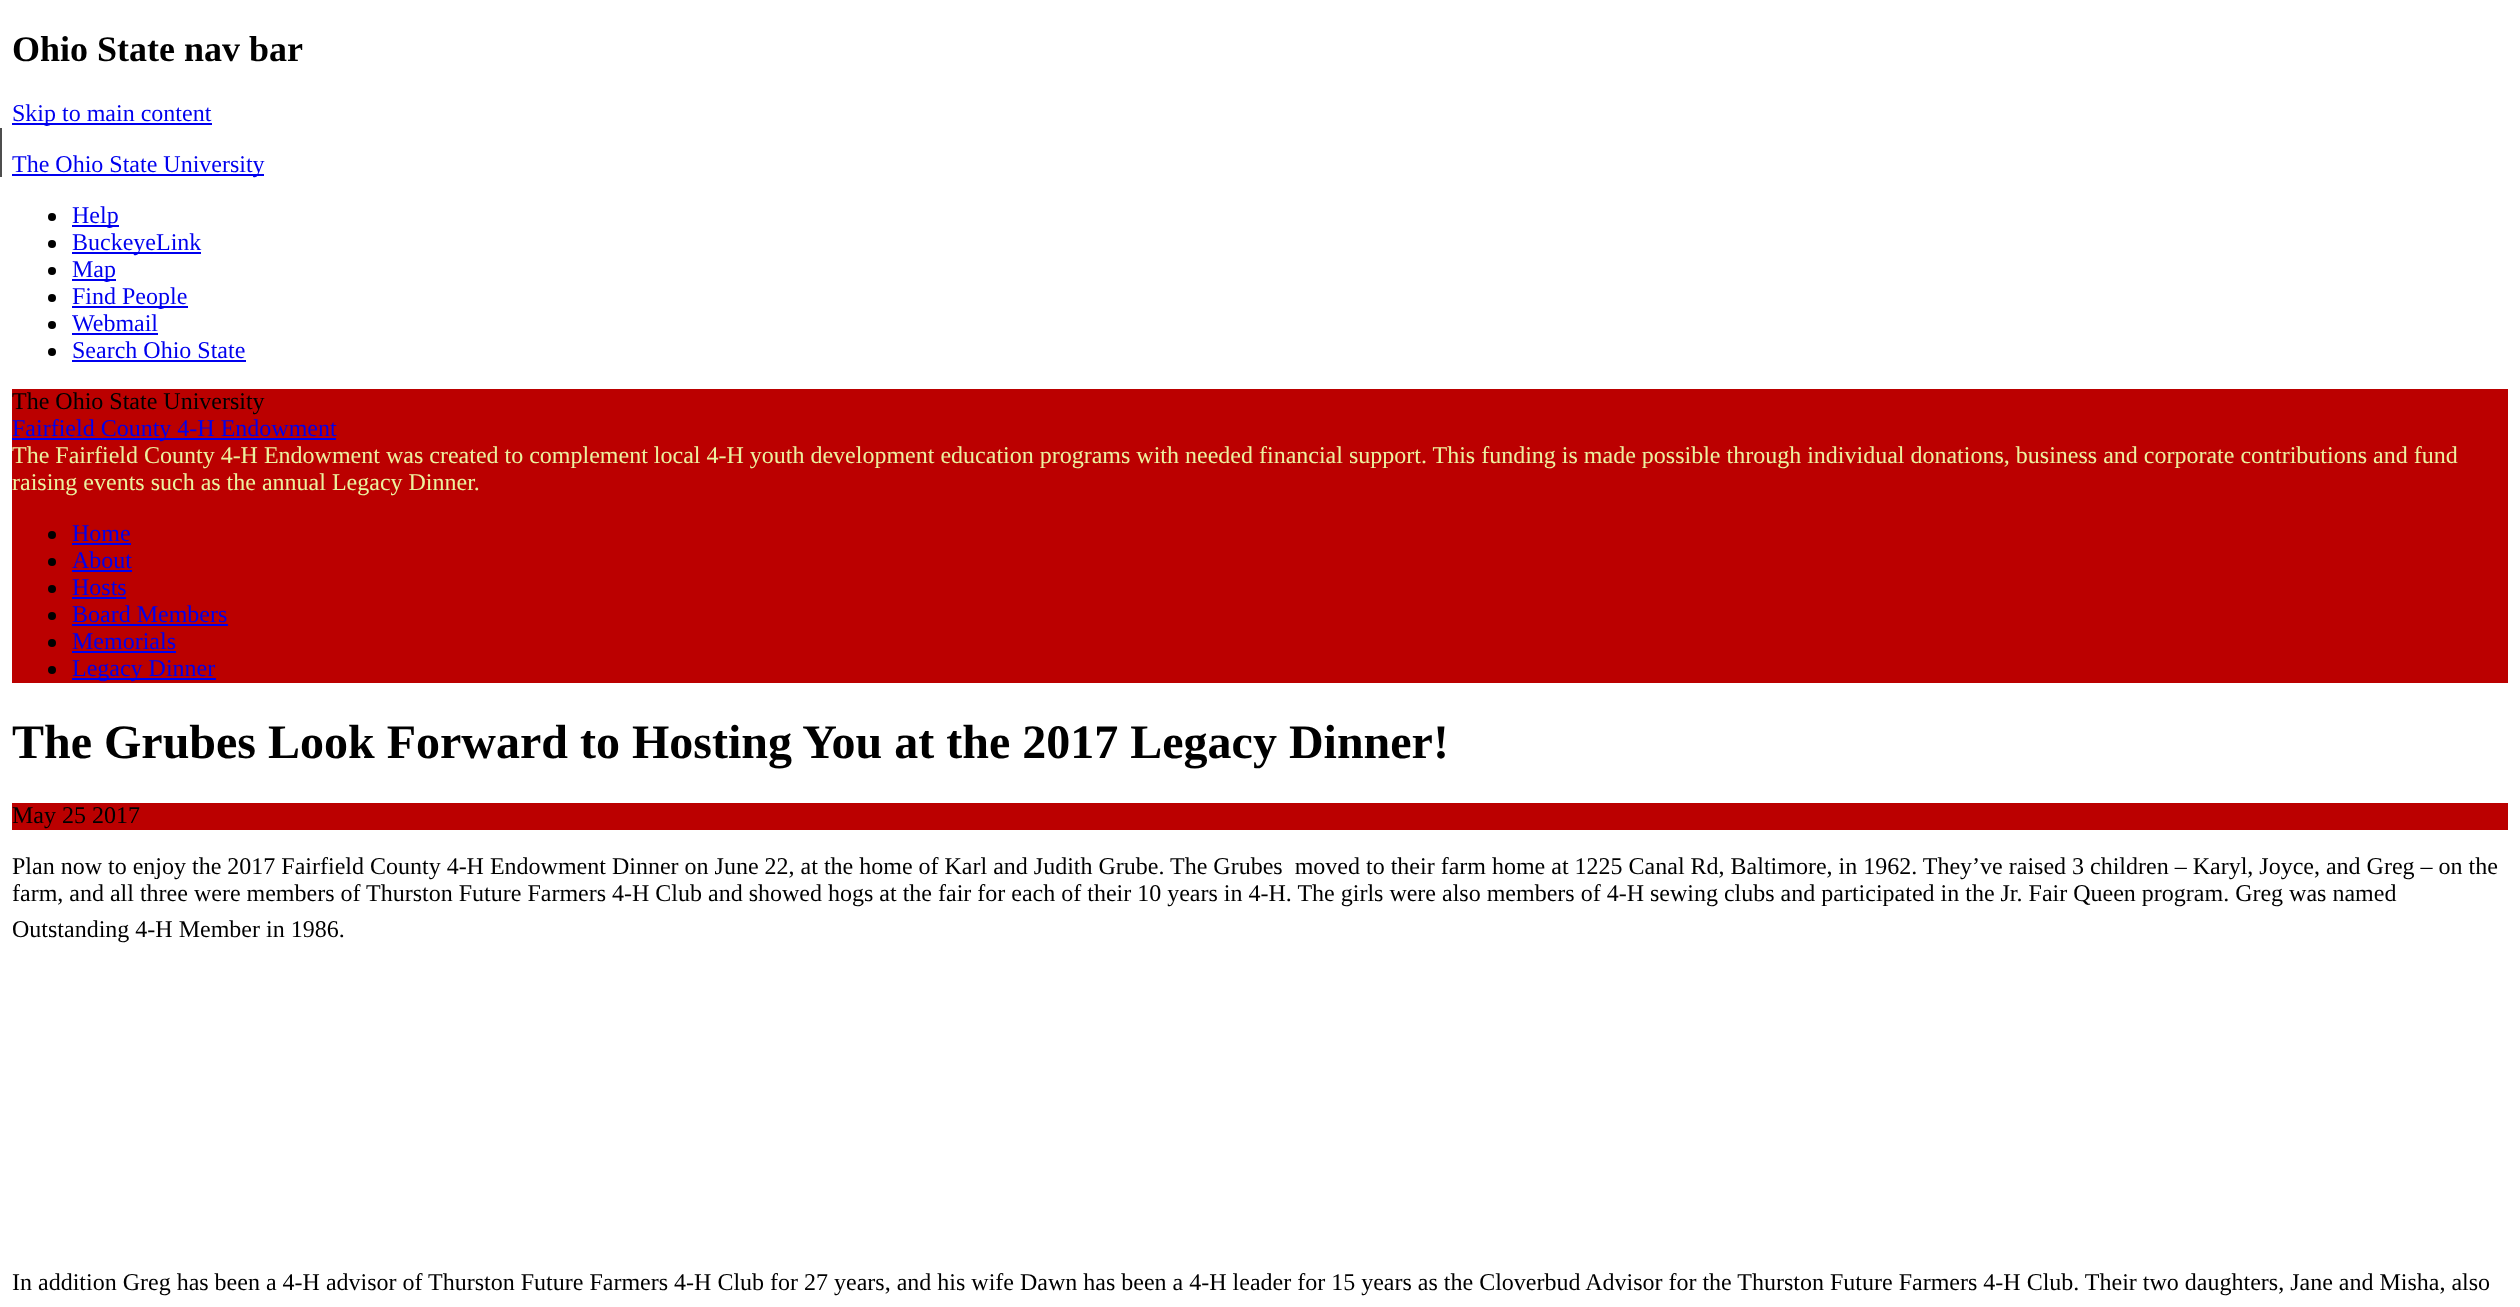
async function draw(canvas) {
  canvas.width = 2520
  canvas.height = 1307
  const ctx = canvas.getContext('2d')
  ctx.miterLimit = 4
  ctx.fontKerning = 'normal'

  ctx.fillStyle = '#fff'
  ctx.fillRect(0, 0, 2520, 1307)
  ctx.font = 'bold 36px Liberation Serif'
  ctx.fillStyle = '#000'
  ctx.fillText('Ohio State nav bar', 12, 61)
  ctx.fillStyle = '#00e'
  ctx.fillRect(12, 123, 200, 2)
  ctx.font = '24px Liberation Serif'
  ctx.fillText('Skip to main content', 12, 121)
  ctx.fillStyle = '#4d4d4d'
  ctx.fillRect(0, 128, 2, 49)
  ctx.fillStyle = '#00e'
  ctx.fillRect(12, 174, 252, 2)
  ctx.fillText('The Ohio State University', 12, 172)
  ctx.fillStyle = '#000'
  ctx.beginPath()
  ctx.arc(52, 217, 4, 0, 2 * Math.PI)
  ctx.fill()
  ctx.fillStyle = '#00e'
  ctx.fillRect(72, 225, 47, 2)
  ctx.fillText('Help', 72, 223)
  ctx.fillStyle = '#000'
  ctx.beginPath()
  ctx.arc(52, 244, 4, 0, 2 * Math.PI)
  ctx.fill()
  ctx.fillStyle = '#00e'
  ctx.fillRect(72, 252, 129, 2)
  ctx.fillText('BuckeyeLink', 72, 250)
  ctx.fillStyle = '#000'
  ctx.beginPath()
  ctx.arc(52, 271, 4, 0, 2 * Math.PI)
  ctx.fill()
  ctx.fillStyle = '#00e'
  ctx.fillRect(72, 279, 44, 2)
  ctx.fillText('Map', 72, 277)
  ctx.fillStyle = '#000'
  ctx.beginPath()
  ctx.arc(52, 298, 4, 0, 2 * Math.PI)
  ctx.fill()
  ctx.fillStyle = '#00e'
  ctx.fillRect(72, 306, 116, 2)
  ctx.fillText('Find People', 72, 304)
  ctx.fillStyle = '#000'
  ctx.beginPath()
  ctx.arc(52, 325, 4, 0, 2 * Math.PI)
  ctx.fill()
  ctx.fillStyle = '#00e'
  ctx.fillText('Webmail', 72, 331)
  ctx.fillRect(72, 333, 86, 2)
  ctx.fillStyle = '#000'
  ctx.beginPath()
  ctx.arc(52, 352, 4, 0, 2 * Math.PI)
  ctx.fill()
  ctx.fillStyle = '#00e'
  ctx.fillText('Search Ohio State', 72, 358)
  ctx.fillRect(72, 360, 174, 2)
  ctx.fillStyle = '#b00'
  ctx.fillRect(12, 389, 2496, 294)
  ctx.fillStyle = '#000'
  ctx.fillText('The Ohio State University', 12, 409)
  ctx.fillStyle = '#00e'
  ctx.fillRect(12, 438, 324, 2)
  ctx.fillText('Fairfield County 4-H Endowment', 12, 436)
  ctx.fillStyle = '#ecf19f'
  ctx.fillText('The Fairfield County 4-H Endowment was created to complement local 4-H youth development education programs with needed financial support. This funding is made possible through individual donations, business and corporate contributions and fund', 12, 463)
  ctx.fillText('raising events such as the annual Legacy Dinner.', 12, 490)
  ctx.fillStyle = '#000'
  ctx.beginPath()
  ctx.arc(52, 535, 4, 0, 2 * Math.PI)
  ctx.fill()
  ctx.fillStyle = '#00e'
  ctx.fillText('Home', 72, 541)
  ctx.fillRect(72, 543, 59, 2)
  ctx.fillStyle = '#000'
  ctx.beginPath()
  ctx.arc(52, 562, 4, 0, 2 * Math.PI)
  ctx.fill()
  ctx.fillStyle = '#00e'
  ctx.fillText('About', 72, 568)
  ctx.fillRect(72, 570, 60, 2)
  ctx.fillStyle = '#000'
  ctx.beginPath()
  ctx.arc(52, 589, 4, 0, 2 * Math.PI)
  ctx.fill()
  ctx.fillStyle = '#00e'
  ctx.fillText('Hosts', 72, 595)
  ctx.fillRect(72, 597, 54, 2)
  ctx.fillStyle = '#000'
  ctx.beginPath()
  ctx.arc(52, 616, 4, 0, 2 * Math.PI)
  ctx.fill()
  ctx.fillStyle = '#00e'
  ctx.fillText('Board Members', 72, 622)
  ctx.fillRect(72, 624, 156, 2)
  ctx.fillStyle = '#000'
  ctx.beginPath()
  ctx.arc(52, 643, 4, 0, 2 * Math.PI)
  ctx.fill()
  ctx.fillStyle = '#00e'
  ctx.fillText('Memorials', 72, 649)
  ctx.fillRect(72, 651, 104, 2)
  ctx.fillStyle = '#000'
  ctx.beginPath()
  ctx.arc(52, 670, 4, 0, 2 * Math.PI)
  ctx.fill()
  ctx.fillStyle = '#00e'
  ctx.fillRect(72, 678, 144, 2)
  ctx.fillText('Legacy Dinner', 72, 676)
  ctx.font = 'bold 48px Liberation Serif'
  ctx.fillStyle = '#000'
  ctx.fillText('The Grubes Look Forward to Hosting You at the 2017 Legacy Dinner!', 12, 758)
  ctx.fillStyle = '#b00'
  ctx.fillRect(12, 803, 2496, 27)
  ctx.font = '24px Liberation Serif'
  ctx.fillStyle = '#000'
  ctx.fillText('May 25 2017', 12, 823)
  ctx.fillText('Plan now to enjoy the 2017 Fairfield County 4-H Endowment Dinner on June 22, at the home of Karl and Judith Grube. The Grubes  moved to their farm home at 1225 Canal Rd, Baltimore, in 1962. They’ve raised 3 children – Karyl, Joyce, and Greg – on the', 12, 874)
  ctx.fillText('farm, and all three were members of Thurston Future Farmers 4-H Club and showed hogs at the fair for each of their 10 years in 4-H. The girls were also members of 4-H sewing clubs and participated in the Jr. Fair Queen program. Greg was named', 12, 901)
  ctx.fillText('Outstanding 4-H Member in 1986.', 12, 937)
  ctx.fillText('In addition Greg has been a 4-H advisor of Thurston Future Farmers 4-H Club for 27 years, and his wife Dawn has been a 4-H leader for 15 years as the Cloverbud Advisor for the Thurston Future Farmers 4-H Club. Their two daughters, Jane and Misha, also', 12, 1290)
}

draw(document.querySelector('canvas'))
